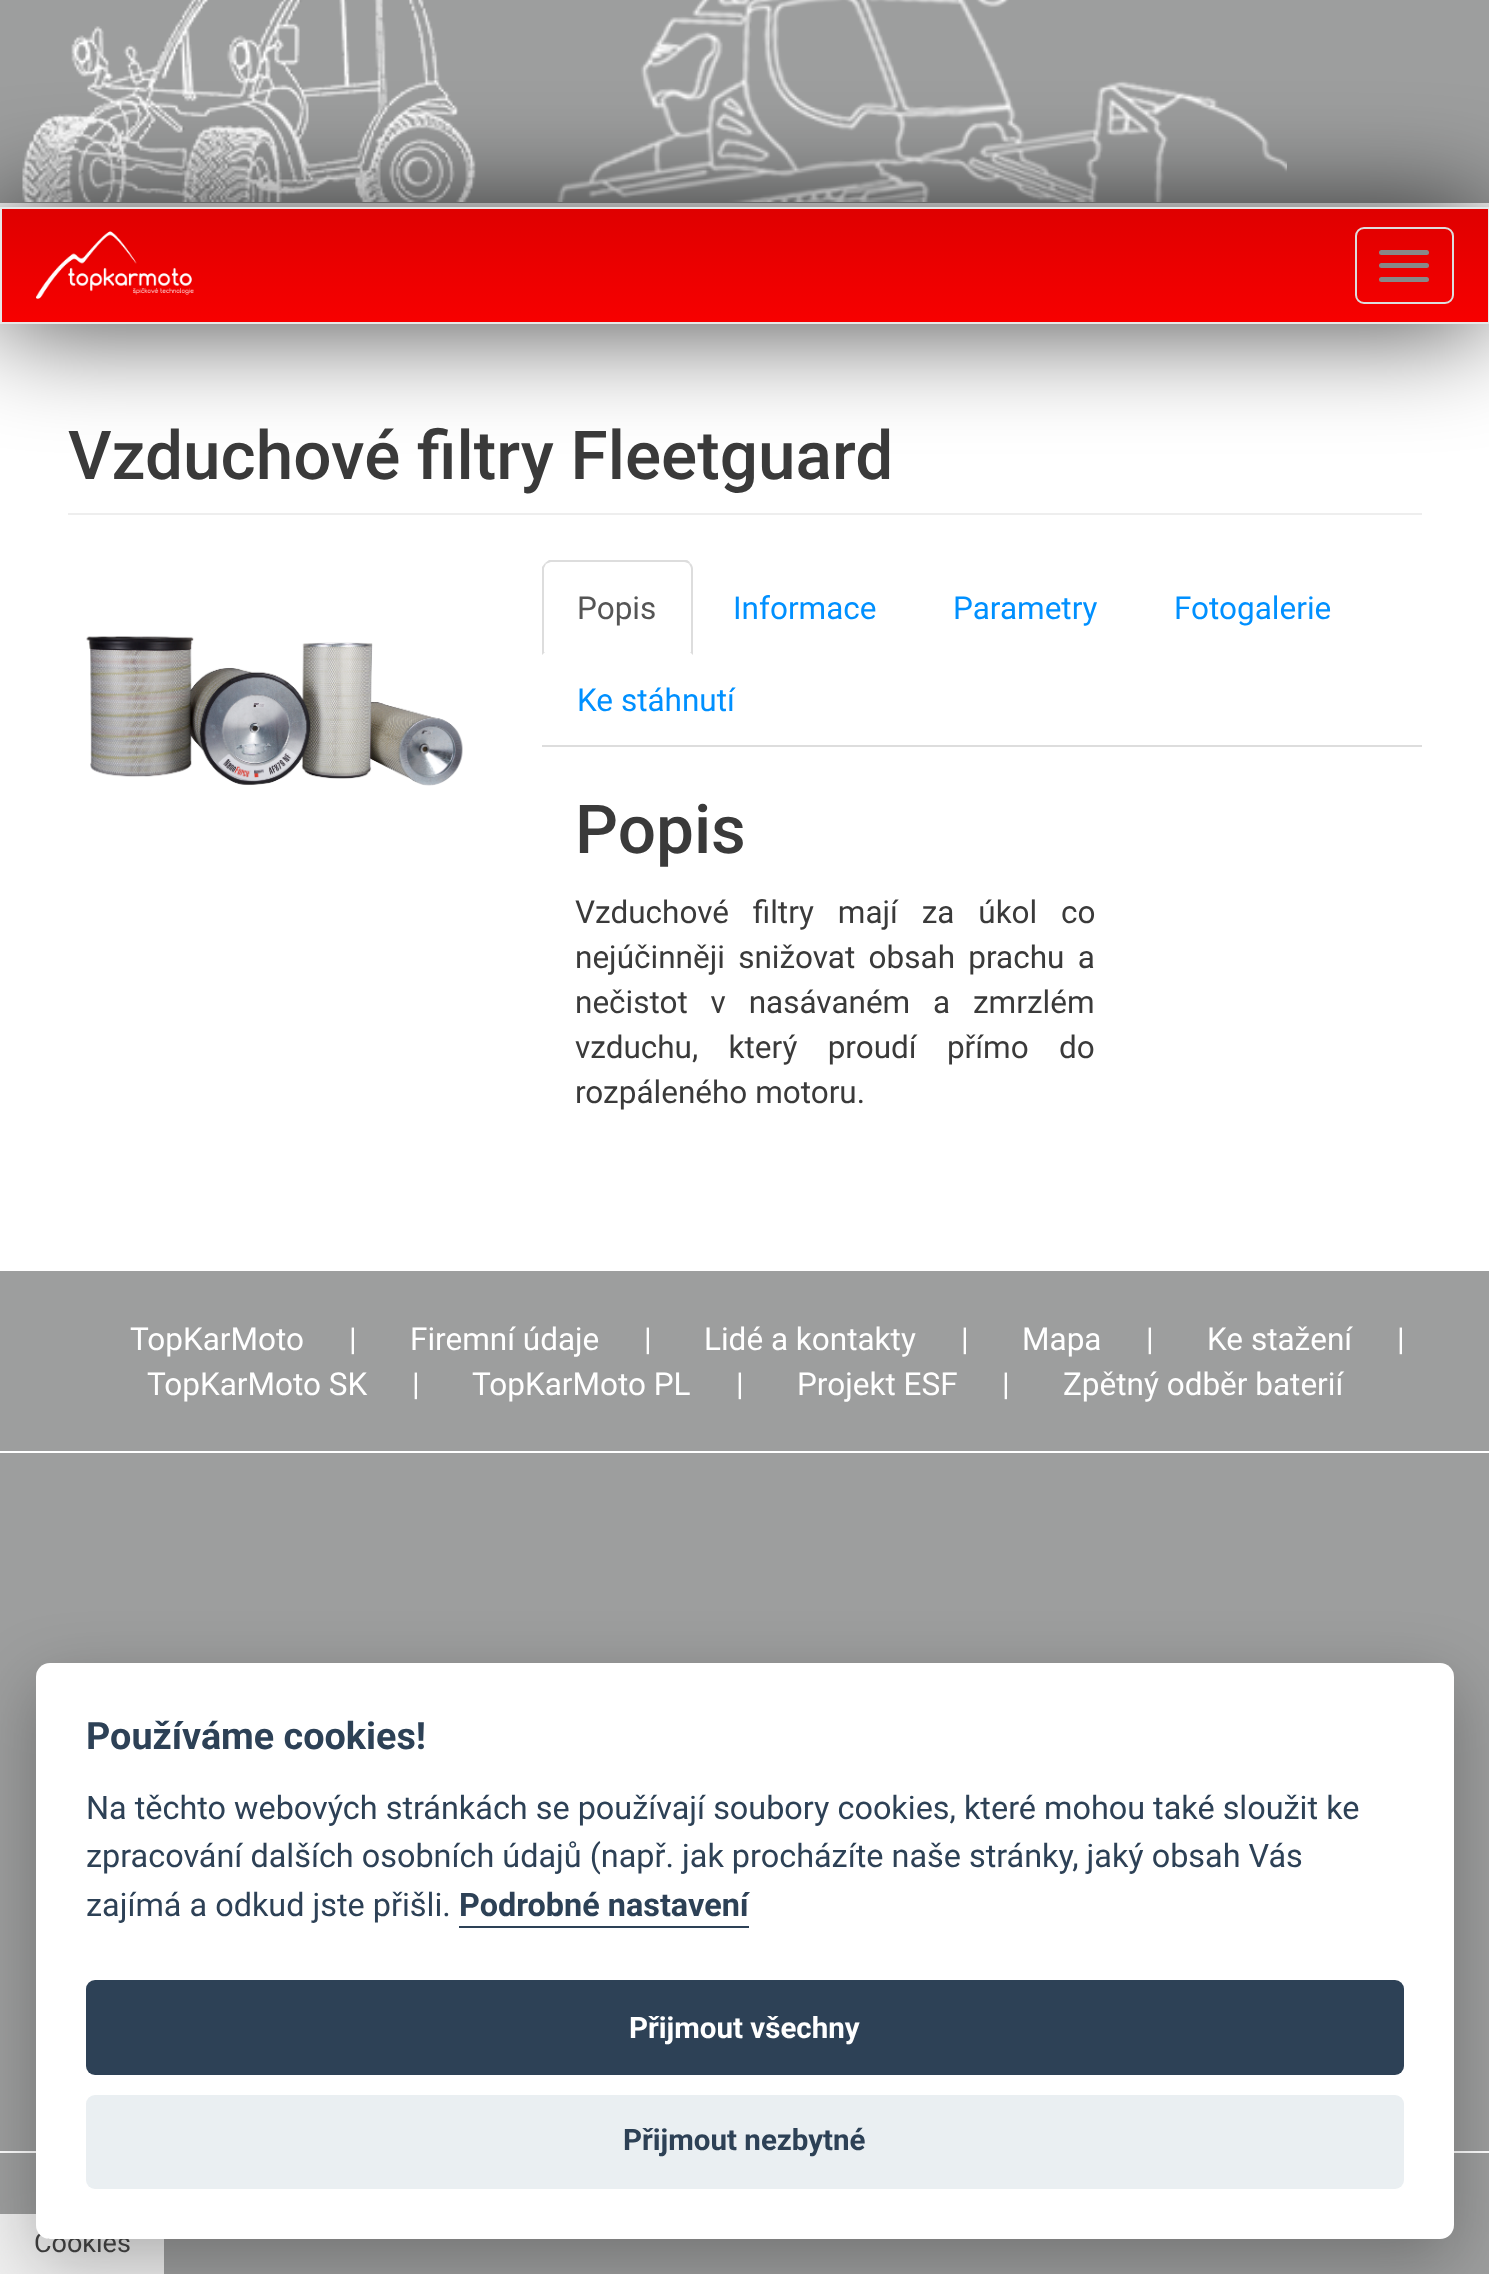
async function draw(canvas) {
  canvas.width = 1489
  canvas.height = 2274
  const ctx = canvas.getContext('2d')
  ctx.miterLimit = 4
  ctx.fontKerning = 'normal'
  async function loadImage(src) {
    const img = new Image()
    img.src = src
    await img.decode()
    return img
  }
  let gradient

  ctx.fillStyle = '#fff'
  ctx.fillRect(0, 0, 1489, 2274)
  ctx.fillStyle = '#9d9e9e'
  ctx.fillRect(0, 0, 1489, 203)
  ctx.drawImage(await loadImage('image0.png'), 22, 0, 1265, 202)
  ctx.fillStyle = '#000000bf'
  ctx.filter = 'blur(54px)'
  ctx.beginPath()
  ctx.rect(-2, 209, 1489, 117)
  ctx.fill()
  ctx.filter = 'none'
  gradient = ctx.createLinearGradient(745, 209, 745, 322)
  gradient.addColorStop(0, '#df0000')
  gradient.addColorStop(1, '#f70000')
  ctx.fillStyle = gradient
  ctx.fillRect(2, 209, 1486, 113)
  ctx.strokeStyle = '#e7e7e7'
  ctx.lineWidth = 2
  ctx.strokeRect(1, 208, 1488, 115)
  ctx.drawImage(await loadImage('image1.png'), 36, 231, 158, 68)
  ctx.beginPath()
  ctx.roundRect(1356, 228, 97, 75, 8)
  ctx.strokeStyle = '#ddd'
  ctx.stroke()
  ctx.fillStyle = '#888'
  ctx.beginPath()
  ctx.roundRect(1379, 250, 50, 5, 2.5)
  ctx.fill()
  ctx.beginPath()
  ctx.roundRect(1379, 263, 50, 5, 2.5)
  ctx.fill()
  ctx.beginPath()
  ctx.roundRect(1379, 277, 50, 5, 2.5)
  ctx.fill()
  ctx.fillStyle = '#eee'
  ctx.fillRect(68, 513, 1354, 2)
  ctx.font = '500 67.5px Roboto'
  ctx.fillStyle = '#3a3a3a'
  ctx.fillText('Vzduchové filtry Fleetguard', 68, 479)
  ctx.drawImage(await loadImage('image2.png'), 86, 636, 377, 150)
  ctx.fillStyle = '#ddd'
  ctx.fillRect(542, 745, 880, 2)
  ctx.beginPath()
  ctx.moveTo(551, 562)
  ctx.bezierCurveTo(550, 562, 548, 563, 546, 564)
  ctx.lineTo(545, 563)
  ctx.lineTo(549, 560)
  ctx.lineTo(686, 560)
  ctx.bezierCurveTo(688, 560, 690, 562, 690, 563)
  ctx.lineTo(689, 564)
  ctx.bezierCurveTo(688, 563, 686, 562, 684, 562)
  ctx.closePath()
  ctx.fill()
  ctx.beginPath()
  ctx.moveTo(693, 655)
  ctx.lineTo(693, 569)
  ctx.bezierCurveTo(693, 567, 692, 564, 690, 563)
  ctx.lineTo(689, 564)
  ctx.bezierCurveTo(690, 566, 691, 567, 691, 569)
  ctx.lineTo(691, 652)
  ctx.lineTo(690, 652)
  ctx.closePath()
  ctx.fill()
  ctx.beginPath()
  ctx.moveTo(542, 655)
  ctx.lineTo(542, 567)
  ctx.lineTo(545, 563)
  ctx.lineTo(546, 564)
  ctx.lineTo(544, 568)
  ctx.lineTo(544, 652)
  ctx.lineTo(545, 652)
  ctx.closePath()
  ctx.fill()
  ctx.font = '31.5px Roboto'
  ctx.fillStyle = '#555'
  ctx.fillText('Popis', 577, 619)
  ctx.fillStyle = '#0090ff'
  ctx.fillText('Informace', 733, 619)
  ctx.fillText('Parametry', 953, 619)
  ctx.fillText('Fotogalerie', 1174, 619)
  ctx.fillText('Ke stáhnutí', 577, 711)
  ctx.font = '500 67.5px Roboto'
  ctx.fillStyle = '#3a3a3a'
  ctx.fillText('Popis', 575, 853)
  ctx.wordSpacing = '16px'
  ctx.font = '31.5px Roboto'
  ctx.fillText('Vzduchové filtry mají za úkol co', 575, 923)
  ctx.wordSpacing = '5.5px'
  ctx.fillText('nejúčinněji snižovat obsah prachu a', 575, 968)
  ctx.wordSpacing = '15px'
  ctx.fillText('nečistot v nasávaném a zmrzlém', 575, 1013)
  ctx.wordSpacing = '22.5px'
  ctx.fillText('vzduchu, který proudí přímo do', 575, 1058)
  ctx.wordSpacing = '0px'
  ctx.fillText('rozpáleného motoru.', 575, 1103)
  ctx.fillStyle = '#9d9e9e'
  ctx.fillRect(0, 1271, 1489, 1003)
  ctx.fillStyle = '#fff'
  ctx.fillRect(0, 1451, 1489, 2)
  ctx.fillText('TopKarMoto', 130, 1350)
  ctx.fillText('|', 349, 1350)
  ctx.fillText('Firemní údaje', 410, 1350)
  ctx.fillText('|', 644, 1350)
  ctx.fillText('Lidé a kontakty', 704, 1350)
  ctx.fillText('|', 961, 1350)
  ctx.fillText('Mapa', 1022, 1350)
  ctx.fillText('|', 1146, 1350)
  ctx.fillText('Ke stažení', 1207, 1350)
  ctx.fillText('|', 1397, 1350)
  ctx.fillText('TopKarMoto SK', 147, 1395)
  ctx.fillText('|', 412, 1395)
  ctx.fillText('TopKarMoto PL', 472, 1395)
  ctx.fillText('|', 736, 1395)
  ctx.fillText('Projekt ESF', 797, 1395)
  ctx.fillText('|', 1002, 1395)
  ctx.fillText('Zpětný odběr baterií', 1063, 1395)
  ctx.fillRect(0, 2151, 1489, 2)
  ctx.fillStyle = '#efefef'
  ctx.fillRect(0, 2214, 164, 60)
  ctx.fillStyle = '#02020347'
  ctx.filter = 'blur(34px)'
  ctx.beginPath()
  ctx.roundRect(36, 1685, 1418, 576, 14)
  ctx.fill()
  ctx.filter = 'none'
  ctx.font = '27px Roboto'
  ctx.fillStyle = '#3a3a3a'
  ctx.fillText('Cookies', 34, 2252)
  ctx.fillStyle = '#fff'
  ctx.beginPath()
  ctx.roundRect(36, 1663, 1418, 576, 14)
  ctx.fill()
  ctx.font = 'bold 37.75px Roboto'
  ctx.fillStyle = '#2d4156'
  ctx.fillText('Používáme cookies!', 86, 1749)
  ctx.font = '32.4px Roboto'
  ctx.fillText('Na těchto webových stránkách se používají soubory cookies, které mohou také sloužit ke', 86, 1819)
  ctx.fillText('zpracování dalších osobních údajů (např. jak procházíte naše stránky, jaký obsah Vás', 86, 1867)
  ctx.fillText('zajímá a odkud jste přišli.', 86, 1916)
  ctx.font = 'bold 32.4px Roboto'
  ctx.fillText('Podrobné nastavení', 459, 1916)
  ctx.fillRect(459, 1926, 290, 2)
  ctx.beginPath()
  ctx.roundRect(86, 1980, 1318, 95, 9)
  ctx.fill()
  ctx.font = 'bold 29.5px Roboto'
  ctx.fillStyle = '#fff'
  ctx.fillText('Přijmout všechny', 629, 2038)
  ctx.fillStyle = '#eaeff2'
  ctx.beginPath()
  ctx.roundRect(86, 2095, 1318, 94, 9)
  ctx.fill()
  ctx.fillStyle = '#2d4156'
  ctx.fillText('Přijmout nezbytné', 623, 2150)
}

draw(document.querySelector('canvas'))
